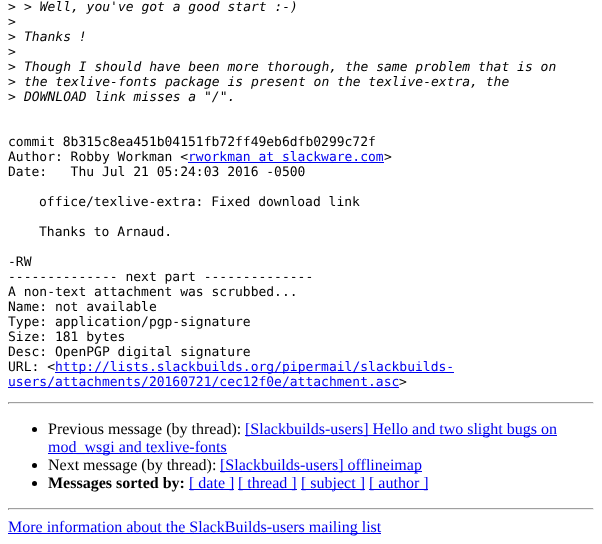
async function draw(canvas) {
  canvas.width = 602
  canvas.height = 544
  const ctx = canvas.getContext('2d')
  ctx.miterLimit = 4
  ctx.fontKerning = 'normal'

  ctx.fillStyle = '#fff'
  ctx.fillRect(0, 0, 602, 544)
  ctx.font = '13px DejaVu Sans Mono'
  ctx.fillStyle = '#000'
  ctx.fillText('>', 8, 11)
  ctx.font = 'italic 13px DejaVu Sans Mono'
  ctx.fillText('> Well, you\'ve got a good start :-)', 24, 11)
  ctx.font = '13px DejaVu Sans Mono'
  ctx.fillText('>', 8, 26)
  ctx.fillText('>', 8, 41)
  ctx.font = 'italic 13px DejaVu Sans Mono'
  ctx.fillText('Thanks !', 24, 41)
  ctx.font = '13px DejaVu Sans Mono'
  ctx.fillText('>', 8, 56)
  ctx.fillText('>', 8, 71)
  ctx.font = 'italic 13px DejaVu Sans Mono'
  ctx.fillText('Though I should have been more thorough, the same problem that is on', 24, 71)
  ctx.font = '13px DejaVu Sans Mono'
  ctx.fillText('>', 8, 86)
  ctx.font = 'italic 13px DejaVu Sans Mono'
  ctx.fillText('the texlive-fonts package is present on the texlive-extra, the', 24, 86)
  ctx.font = '13px DejaVu Sans Mono'
  ctx.fillText('>', 8, 101)
  ctx.font = 'italic 13px DejaVu Sans Mono'
  ctx.fillText('DOWNLOAD link misses a "/".', 24, 101)
  ctx.font = '13px DejaVu Sans Mono'
  ctx.fillText('commit 8b315c8ea451b04151fb72ff49eb6dfb0299c72f', 8, 146)
  ctx.fillText('Author: Robby Workman <', 8, 161)
  ctx.fillStyle = '#00e'
  ctx.fillText('rworkman at slackware.com', 188, 161)
  ctx.fillRect(188, 162, 196, 1)
  ctx.fillStyle = '#000'
  ctx.fillText('>', 384, 161)
  ctx.fillText('Date:   Thu Jul 21 05:24:03 2016 -0500', 8, 176)
  ctx.fillText('office/texlive-extra: Fixed download link', 39, 206)
  ctx.fillText('Thanks to Arnaud.', 39, 236)
  ctx.fillText('-RW', 8, 266)
  ctx.fillText('-------------- next part --------------', 8, 281)
  ctx.fillText('A non-text attachment was scrubbed...', 8, 296)
  ctx.fillText('Name: not available', 8, 311)
  ctx.fillText('Type: application/pgp-signature', 8, 326)
  ctx.fillText('Size: 181 bytes', 8, 341)
  ctx.fillText('Desc: OpenPGP digital signature', 8, 356)
  ctx.fillText('URL: <', 8, 371)
  ctx.fillStyle = '#00e'
  ctx.fillRect(55, 372, 399, 1)
  ctx.fillText('http://lists.slackbuilds.org/pipermail/slackbuilds-', 55, 371)
  ctx.fillRect(8, 387, 391, 1)
  ctx.fillText('users/attachments/20160721/cec12f0e/attachment.asc', 8, 386)
  ctx.fillStyle = '#000'
  ctx.fillText('>', 399, 386)
  ctx.fillStyle = '#9f9f9f'
  ctx.fillRect(8, 402, 586, 1)
  ctx.fillStyle = '#eee'
  ctx.fillRect(593, 402, 1, 2)
  ctx.fillRect(8, 403, 586, 1)
  ctx.fillStyle = '#9f9f9f'
  ctx.fillRect(8, 402, 1, 2)
  ctx.fillStyle = '#000'
  ctx.beginPath()
  ctx.arc(34.5, 429.5, 2.5, 0, 2 * Math.PI)
  ctx.fill()
  ctx.font = '16px Liberation Serif'
  ctx.fillText('Previous message (by thread):', 48, 434)
  ctx.fillStyle = '#00e'
  ctx.fillRect(245, 435, 312, 1)
  ctx.fillText('[Slackbuilds-users] Hello and two slight bugs on', 245, 434)
  ctx.fillRect(48, 453, 179, 1)
  ctx.fillText('mod_wsgi and texlive-fonts', 48, 452)
  ctx.fillStyle = '#000'
  ctx.beginPath()
  ctx.arc(34.5, 465.5, 2.5, 0, 2 * Math.PI)
  ctx.fill()
  ctx.fillText('Next message (by thread):', 48, 470)
  ctx.fillStyle = '#00e'
  ctx.fillRect(220, 471, 202, 1)
  ctx.fillText('[Slackbuilds-users] offlineimap', 220, 470)
  ctx.fillStyle = '#000'
  ctx.beginPath()
  ctx.arc(34.5, 483.5, 2.5, 0, 2 * Math.PI)
  ctx.fill()
  ctx.font = 'bold 16px Liberation Serif'
  ctx.fillText('Messages sorted by:', 48, 488)
  ctx.fillStyle = '#00e'
  ctx.fillRect(189, 489, 45, 1)
  ctx.font = '16px Liberation Serif'
  ctx.fillText('[ date ]', 189, 488)
  ctx.fillRect(238, 489, 59, 1)
  ctx.fillText('[ thread ]', 238, 488)
  ctx.fillRect(301, 489, 64, 1)
  ctx.fillText('[ subject ]', 301, 488)
  ctx.fillRect(369, 489, 59, 1)
  ctx.fillText('[ author ]', 369, 488)
  ctx.fillStyle = '#9f9f9f'
  ctx.fillRect(8, 508, 586, 1)
  ctx.fillStyle = '#eee'
  ctx.fillRect(593, 508, 1, 2)
  ctx.fillRect(8, 509, 586, 1)
  ctx.fillStyle = '#9f9f9f'
  ctx.fillRect(8, 508, 1, 2)
  ctx.fillStyle = '#00e'
  ctx.fillRect(8, 533, 373, 1)
  ctx.fillText('More information about the SlackBuilds-users mailing list', 8, 532)
}

draw(document.querySelector('canvas'))
